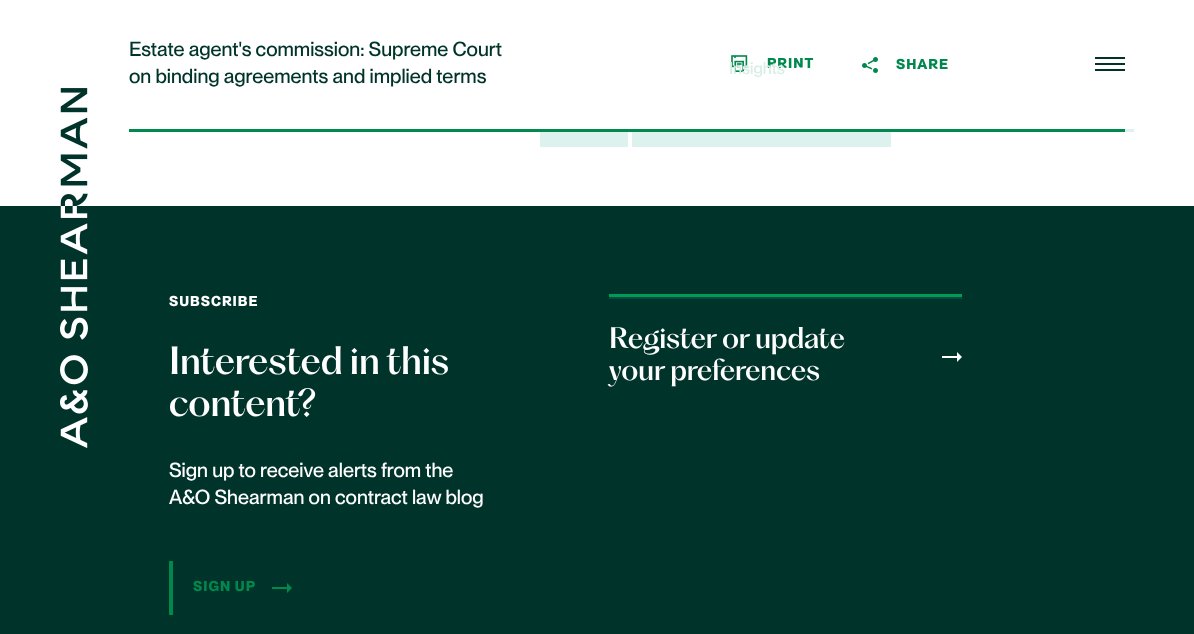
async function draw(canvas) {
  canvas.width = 1194
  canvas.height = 634
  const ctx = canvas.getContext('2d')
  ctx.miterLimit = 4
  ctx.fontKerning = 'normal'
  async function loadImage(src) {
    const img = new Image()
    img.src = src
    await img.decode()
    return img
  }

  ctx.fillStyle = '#fff'
  ctx.fillRect(0, 0, 1194, 634)
  ctx.font = '20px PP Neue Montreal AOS'
  ctx.fillStyle = '#00342b'
  ctx.fillText('Estate agent\'s commission: Supreme Court', 129, 56)
  ctx.fillText('on binding agreements and implied terms', 129, 83)
  ctx.drawImage(await loadImage('image0.png'), 731, 55, 17, 17)
  ctx.letterSpacing = '1px'
  ctx.font = 'bold 14px PP Neue Montreal AOS'
  ctx.fillStyle = '#00884d'
  ctx.fillText('PRINT', 767, 68)
  ctx.drawImage(await loadImage('image1.png'), 862, 57, 16, 16)
  ctx.fillText('SHARE', 896, 69)
  ctx.fillStyle = '#ddf1ee'
  ctx.fillRect(1125, 129, 9, 3)
  ctx.fillStyle = '#00884d'
  ctx.fillRect(129, 129, 996, 3)
  ctx.fillStyle = '#00342b'
  ctx.fillRect(1095, 57, 30, 2)
  ctx.fillRect(1095, 63, 30, 2)
  ctx.fillRect(1095, 69, 30, 2)
  ctx.drawImage(await loadImage('image2.png'), 60, 88, 28, 118)
  ctx.fillStyle = '#ddf1ee'
  ctx.fillRect(540, 132, 88, 15)
  ctx.fillRect(632, 132, 259, 15)
  ctx.fillStyle = '#00342b'
  ctx.fillRect(0, 206, 1194, 428)
  ctx.drawImage(await loadImage('image3.png'), 60, 206, 28, 242)
  ctx.fillStyle = '#fff'
  ctx.fillText('SUBSCRIBE', 169, 306)
  ctx.letterSpacing = '0px'
  ctx.font = '35.25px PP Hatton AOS'
  ctx.fillText('Interested in this', 169, 374)
  ctx.fillText('content?', 169, 416)
  ctx.font = '20px PP Neue Montreal AOS'
  ctx.fillText('Sign up to receive alerts from the', 169, 477)
  ctx.fillText('A&O Shearman on contract law blog', 169, 504)
  ctx.fillStyle = '#00884d'
  ctx.fillRect(169, 561, 4, 54)
  ctx.letterSpacing = '1px'
  ctx.font = 'bold 14px PP Neue Montreal AOS'
  ctx.fillText('SIGN UP', 193, 591)
  ctx.beginPath()
  ctx.moveTo(292, 588)
  ctx.lineTo(287, 593)
  ctx.lineTo(287, 583)
  ctx.closePath()
  ctx.fill()
  ctx.fillRect(272, 587, 17, 2)
  ctx.fillStyle = '#009b55'
  ctx.fillRect(609, 294, 353, 3)
  ctx.fillStyle = '#044d40'
  ctx.fillRect(609, 297, 353, 2)
  ctx.letterSpacing = '0px'
  ctx.font = '26.75px PP Hatton AOS'
  ctx.fillStyle = '#fff'
  ctx.fillText('Register or update', 609, 348)
  ctx.fillText('your preferences', 609, 380)
  ctx.beginPath()
  ctx.moveTo(962, 357)
  ctx.lineTo(957, 362)
  ctx.lineTo(957, 352)
  ctx.closePath()
  ctx.fill()
  ctx.fillRect(942, 356, 17, 2)
  ctx.font = '16.5px PP Neue Montreal AOS'
  ctx.fillStyle = '#d8ede4'
  ctx.fillText('Insights', 729, 74)
  ctx.fillStyle = '#fff'
  ctx.beginPath()
  ctx.moveTo(796, 67.5)
  ctx.lineTo(806, 67.5)
  ctx.lineTo(801, 72.5)
  ctx.closePath()
  ctx.fill()
}

draw(document.querySelector('canvas'))
